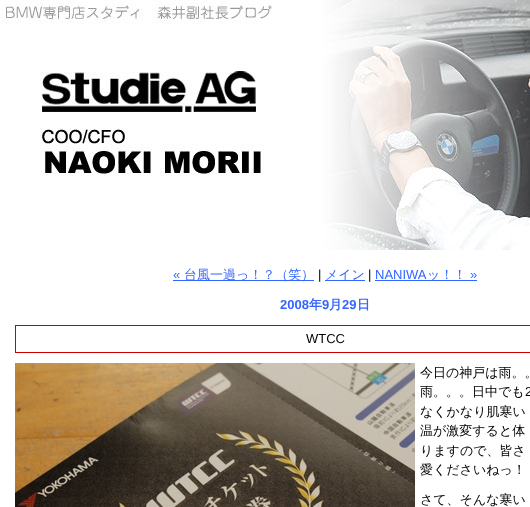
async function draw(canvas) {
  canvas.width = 530
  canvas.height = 507
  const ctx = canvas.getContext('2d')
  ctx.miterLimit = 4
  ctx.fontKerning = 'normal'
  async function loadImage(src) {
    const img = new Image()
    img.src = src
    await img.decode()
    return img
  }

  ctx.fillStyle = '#fff'
  ctx.fillRect(0, 0, 530, 507)
  ctx.drawImage(await loadImage('image0.png'), 0, 0, 530, 250)
  ctx.font = '13px Liberation Sans'
  ctx.fillStyle = '#36f'
  ctx.fillText('«', 173, 279)
  ctx.fillRect(173, 280, 141, 1)
  ctx.font = '500 13px WenQuanYi Zen Hei'
  ctx.fillText('台風一過っ！？（笑）', 184, 279)
  ctx.font = '13px Liberation Sans'
  ctx.fillStyle = '#000'
  ctx.fillText('|', 318, 279)
  ctx.fillStyle = '#36f'
  ctx.fillRect(325, 280, 40, 1)
  ctx.font = '500 13px WenQuanYi Zen Hei'
  ctx.fillText('メイン', 325, 279)
  ctx.font = '13px Liberation Sans'
  ctx.fillStyle = '#000'
  ctx.fillText('|', 368, 279)
  ctx.fillStyle = '#36f'
  ctx.fillText('NANIWA', 375, 279)
  ctx.fillRect(375, 280, 102, 1)
  ctx.font = '500 13px WenQuanYi Zen Hei'
  ctx.fillText('ッ！！', 427, 279)
  ctx.font = '13px Liberation Sans'
  ctx.fillText('»', 470, 279)
  ctx.font = 'bold 13px Liberation Sans'
  ctx.fillText('2008', 280, 309)
  ctx.font = 'bold 13px WenQuanYi Zen Hei'
  ctx.fillText('年', 309, 309)
  ctx.font = 'bold 13px Liberation Sans'
  ctx.fillText('9', 322, 309)
  ctx.font = 'bold 13px WenQuanYi Zen Hei'
  ctx.fillText('月', 329, 309)
  ctx.font = 'bold 13px Liberation Sans'
  ctx.fillText('29', 342, 309)
  ctx.font = 'bold 13px WenQuanYi Zen Hei'
  ctx.fillText('日', 357, 309)
  ctx.strokeStyle = '#c00'
  ctx.strokeRect(15.5, 325.5, 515, 27)
  ctx.font = '13px Liberation Sans'
  ctx.fillStyle = '#000'
  ctx.fillText('WTCC', 306, 343)
  ctx.drawImage(await loadImage('image1.png'), 15, 363, 400, 144)
  ctx.font = '500 13px WenQuanYi Zen Hei'
  ctx.fillText('今日の神戸は雨。。', 420, 377)
  ctx.fillText('雨。。。日中でも', 420, 396)
  ctx.font = '13px Liberation Sans'
  ctx.fillText('2', 525, 396)
  ctx.font = '500 13px WenQuanYi Zen Hei'
  ctx.fillText('なくかなり肌寒い', 420, 416)
  ctx.fillText('温が激変すると体', 420, 435)
  ctx.fillText('りますので、皆さ', 420, 455)
  ctx.fillText('愛くださいねっ！', 420, 474)
  ctx.fillText('さて、そんな寒い', 420, 504)
}

draw(document.querySelector('canvas'))
